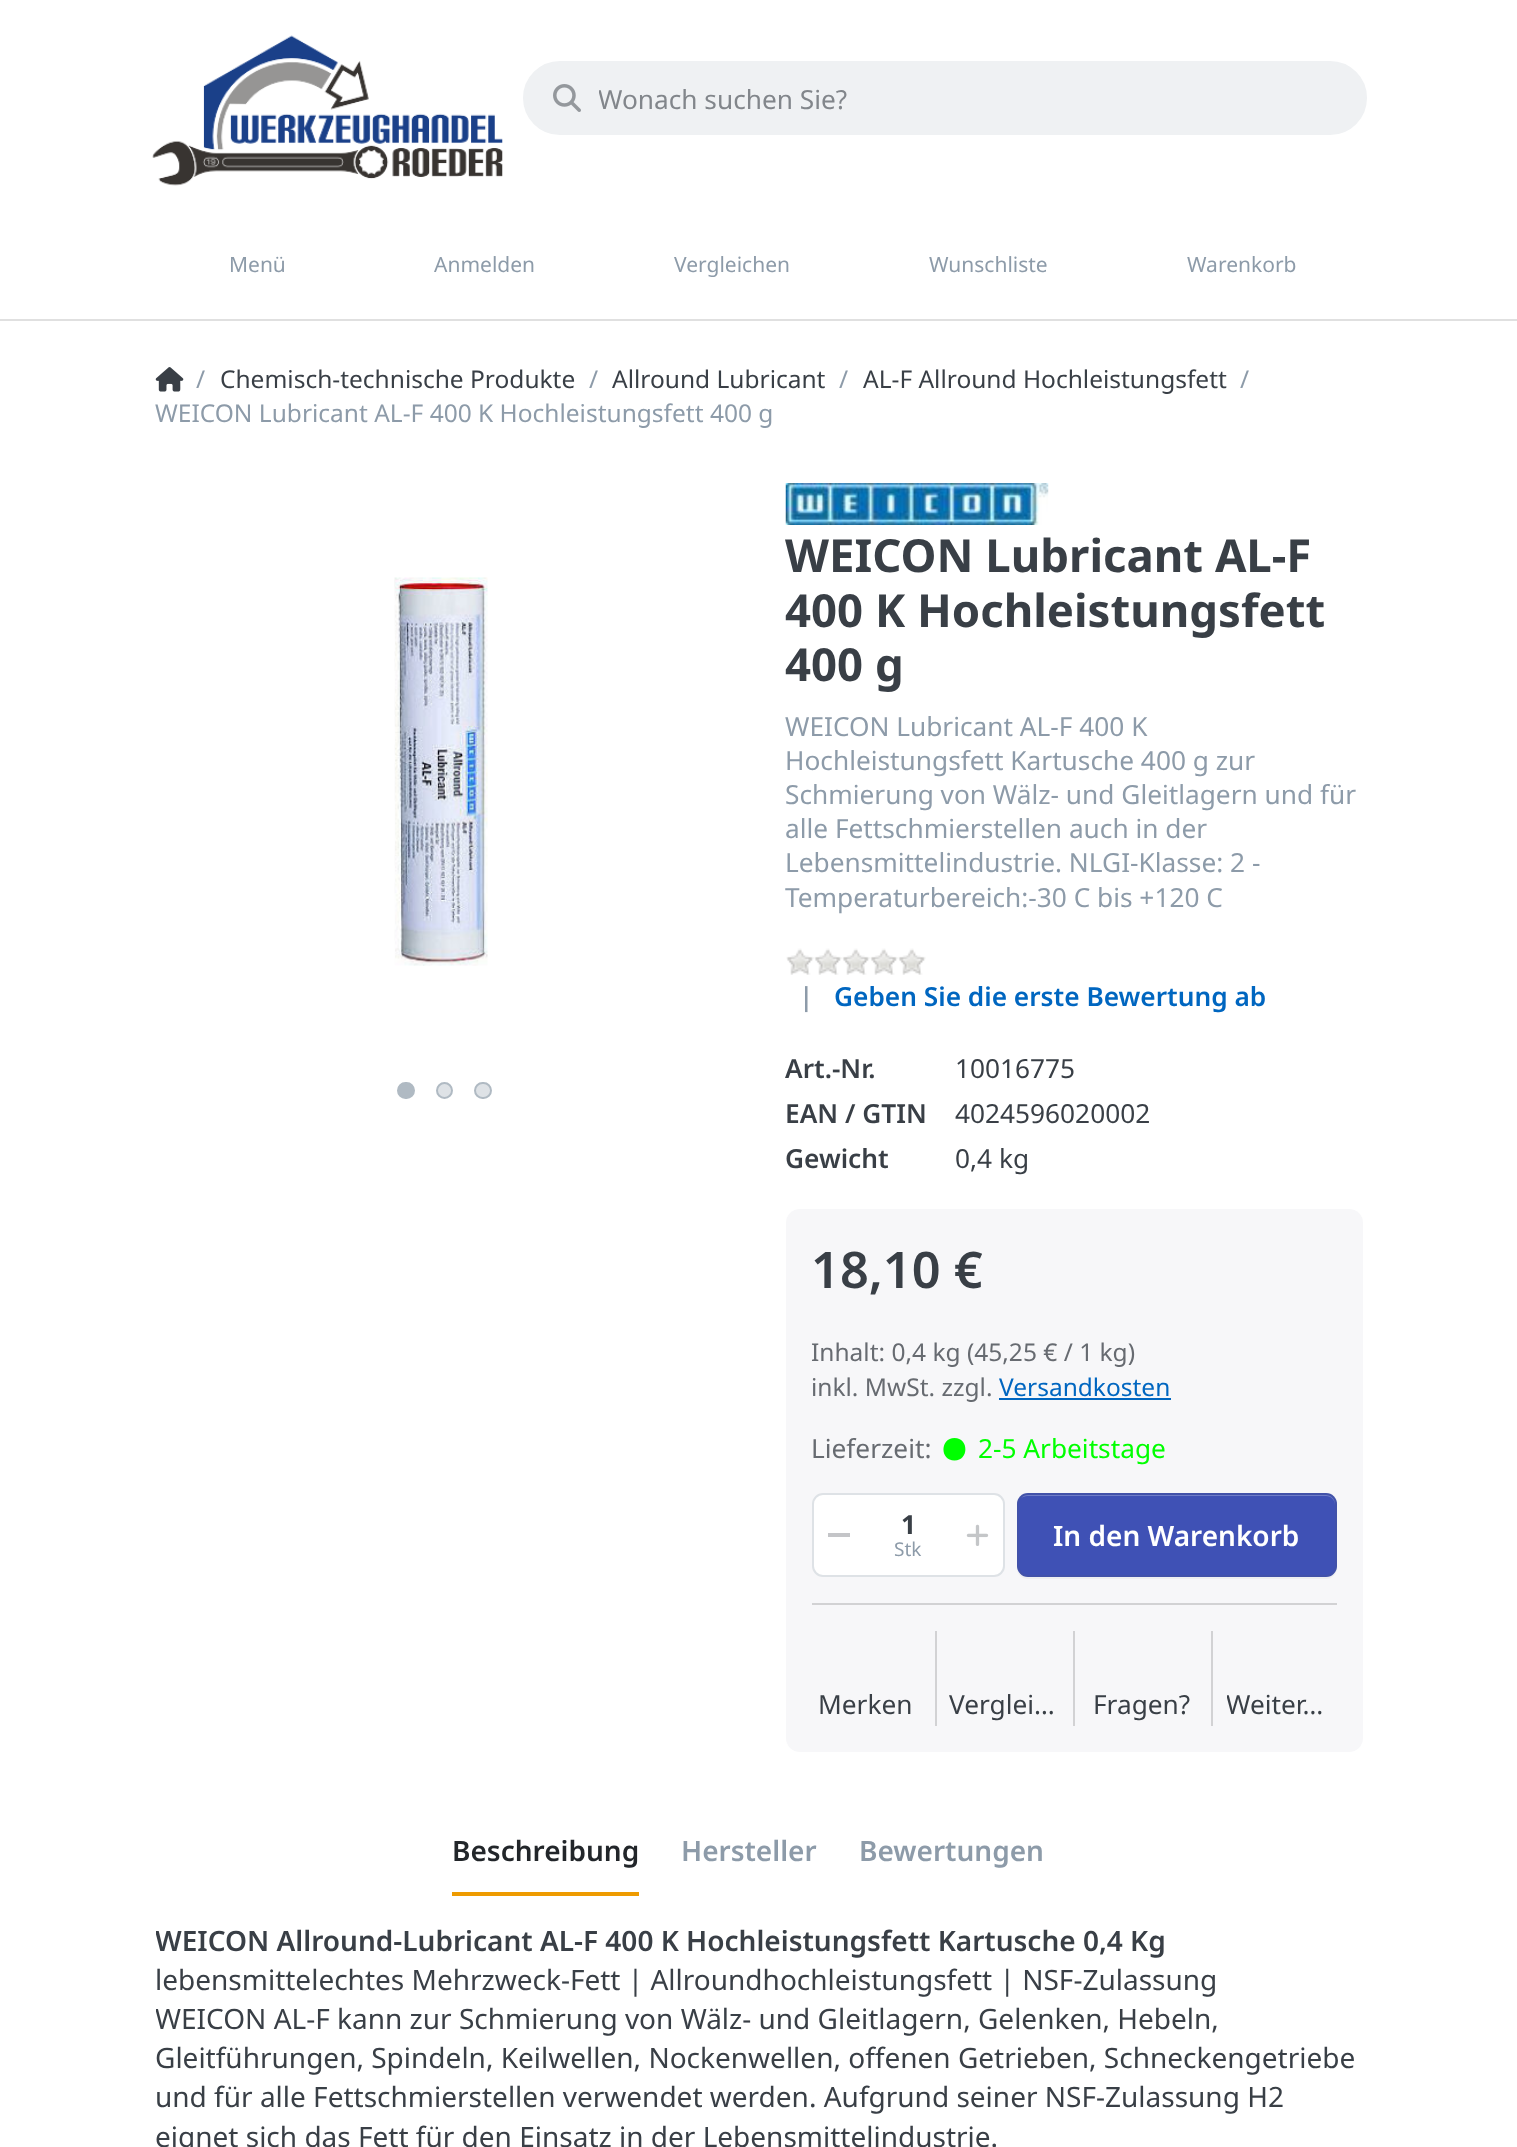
async function draw(canvas) {
  canvas.width = 1517
  canvas.height = 2147
  const ctx = canvas.getContext('2d')
  ctx.miterLimit = 4
  ctx.fontKerning = 'normal'
  async function loadImage(src) {
    const img = new Image()
    img.src = src
    await img.decode()
    return img
  }

  ctx.fillStyle = '#fff'
  ctx.fillRect(0, 0, 1517, 2147)
  ctx.fillStyle = '#e0e0e0'
  ctx.fillRect(0, 319, 1517, 2)
  ctx.drawImage(await loadImage('image0.png'), 152, 35, 351, 151)
  ctx.fillStyle = '#eff1f3'
  ctx.beginPath()
  ctx.roundRect(524, 62, 842, 72, 36)
  ctx.fill()
  ctx.strokeStyle = '#eff1f3'
  ctx.lineWidth = 2
  ctx.stroke()
  ctx.drawImage(await loadImage('image1.png'), 553, 84, 28, 28)
  ctx.save()
  ctx.beginPath()
  ctx.rect(599, 81, 689, 35)
  ctx.clip()
  ctx.font = '26.25px Noto Sans'
  ctx.fillStyle = '#82868b'
  ctx.fillText('Wonach suchen Sie?', 598, 109)
  ctx.restore()
  ctx.font = '21px Noto Sans'
  ctx.fillStyle = '#8d9ba9'
  ctx.fillText('Menü', 229, 272)
  ctx.fillText('Anmelden', 434, 272)
  ctx.fillText('Vergleichen', 674, 272)
  ctx.fillText('Wunschliste', 929, 272)
  ctx.fillText('Warenkorb', 1187, 272)
  ctx.drawImage(await loadImage('image2.png'), 155, 367, 29, 25)
  ctx.font = '24.5px Noto Sans'
  ctx.fillText('/', 196, 388)
  ctx.fillStyle = '#393f46'
  ctx.fillText('Chemisch-technische Produkte', 220, 388)
  ctx.fillStyle = '#8d9ba9'
  ctx.fillText('/', 589, 388)
  ctx.fillStyle = '#393f46'
  ctx.fillText('Allround Lubricant', 612, 388)
  ctx.fillStyle = '#8d9ba9'
  ctx.fillText('/', 839, 388)
  ctx.fillStyle = '#393f46'
  ctx.fillText('AL-F Allround Hochleistungsfett', 863, 388)
  ctx.fillStyle = '#8d9ba9'
  ctx.fillText('/', 1240, 388)
  ctx.fillText('WEICON Lubricant AL-F 400 K Hochleistungsfett 400 g', 155, 422)
  ctx.drawImage(await loadImage('image3.png'), 394, 577, 94, 389)
  ctx.fillStyle = '#b0bac3'
  ctx.beginPath()
  ctx.roundRect(398, 1083, 16, 15, 7.5)
  ctx.fill()
  ctx.strokeStyle = '#b0bac3'
  ctx.stroke()
  ctx.fillStyle = '#dee2e6'
  ctx.beginPath()
  ctx.arc(444.5, 1090.5, 7.5, 0, 2 * Math.PI)
  ctx.fill()
  ctx.stroke()
  ctx.beginPath()
  ctx.roundRect(475, 1083, 16, 15, 7.5)
  ctx.fill()
  ctx.stroke()
  ctx.drawImage(await loadImage('image4.png'), 785, 483, 264, 42)
  ctx.font = 'bold 45.5px Noto Sans'
  ctx.fillStyle = '#393f46'
  ctx.fillText('WEICON Lubricant AL-F', 785, 572)
  ctx.fillText('400 K Hochleistungsfett', 785, 627)
  ctx.fillText('400 g', 785, 681)
  ctx.font = '26.25px Noto Sans'
  ctx.fillStyle = '#8d9ba9'
  ctx.fillText('WEICON Lubricant AL-F 400 K', 785, 736)
  ctx.fillText('Hochleistungsfett Kartusche 400 g zur', 785, 770)
  ctx.fillText('Schmierung von Wälz- und Gleitlagern und für', 785, 804)
  ctx.fillText('alle Fettschmierstellen auch in der', 785, 838)
  ctx.fillText('Lebensmittelindustrie. NLGI-Klasse: 2 -', 785, 872)
  ctx.fillText('Temperaturbereich:-30 C bis +120 C', 785, 907)
  ctx.drawImage(await loadImage('image5.png'), 786, 948, 140, 27)
  ctx.font = '600 26.25px Noto Sans'
  ctx.fillText('|', 799, 1006)
  ctx.fillStyle = '#0066c0'
  ctx.fillText('Geben Sie die erste Bewertung ab', 834, 1006)
  ctx.fillStyle = '#393f46'
  ctx.fillText('Art.-Nr.', 785, 1078)
  ctx.font = '26.25px Noto Sans'
  ctx.fillText('10016775', 955, 1078)
  ctx.font = '600 26.25px Noto Sans'
  ctx.fillText('EAN / GTIN', 785, 1123)
  ctx.font = '26.25px Noto Sans'
  ctx.fillText('4024596020002', 955, 1123)
  ctx.font = '600 26.25px Noto Sans'
  ctx.fillText('Gewicht', 785, 1168)
  ctx.font = '26.25px Noto Sans'
  ctx.fillText('0,4 kg', 955, 1168)
  ctx.fillStyle = '#f7f7f9'
  ctx.beginPath()
  ctx.roundRect(786, 1209, 577, 543, 14)
  ctx.fill()
  ctx.font = '600 50.5px Noto Sans'
  ctx.fillStyle = '#393f46'
  ctx.fillText('18,10 €', 811, 1288)
  ctx.font = '24.5px Noto Sans'
  ctx.fillStyle = '#676b71'
  ctx.fillText('Inhalt: 0,4 kg (45,25 € / 1 kg)', 811, 1361)
  ctx.fillText('inkl. MwSt. zzgl.', 811, 1396)
  ctx.fillStyle = '#0066c0'
  ctx.fillText('Versandkosten', 999, 1396)
  ctx.fillRect(999, 1398, 172, 2)
  ctx.font = '26.25px Noto Sans'
  ctx.fillStyle = '#676b71'
  ctx.fillText('Lieferzeit:', 811, 1458)
  ctx.fillStyle = '#0f0'
  ctx.beginPath()
  ctx.moveTo(954.5, 1460.5)
  ctx.bezierCurveTo(969, 1460.5, 969, 1438, 954.5, 1438)
  ctx.bezierCurveTo(940, 1438, 939.5, 1460.5, 954.5, 1460.5)
  ctx.closePath()
  ctx.fill()
  ctx.fillText('2-5 Arbeitstage', 978, 1458)
  ctx.fillStyle = '#fff'
  ctx.beginPath()
  ctx.roundRect(813, 1494, 191, 82, 10)
  ctx.fill()
  ctx.strokeStyle = '#dee2e6'
  ctx.stroke()
  ctx.fillStyle = '#c4c5c8'
  ctx.fillRect(828, 1533, 22, 4)
  ctx.font = 'bold 26.25px Noto Sans'
  ctx.fillStyle = '#393f46'
  ctx.fillText('1', 901, 1534)
  ctx.drawImage(await loadImage('image6.png'), 966, 1524, 23, 22)
  ctx.font = '19px Noto Sans'
  ctx.fillStyle = '#8d9ba9'
  ctx.fillText('Stk', 894, 1556)
  ctx.fillStyle = '#eeeff1'
  ctx.beginPath()
  ctx.moveTo(1017, 1569)
  ctx.bezierCurveTo(1017, 1574, 1022, 1579, 1028, 1579)
  ctx.lineTo(1326, 1579)
  ctx.bezierCurveTo(1332, 1579, 1337, 1574, 1337, 1568)
  ctx.lineTo(1337, 1566)
  ctx.bezierCurveTo(1337, 1572, 1332, 1577, 1326, 1577)
  ctx.lineTo(1027, 1577)
  ctx.bezierCurveTo(1022, 1577, 1018, 1573, 1017, 1569)
  ctx.closePath()
  ctx.fill()
  ctx.fillStyle = '#3f51b5'
  ctx.beginPath()
  ctx.roundRect(1017, 1493, 320, 84, 11)
  ctx.fill()
  ctx.fillStyle = '#6f7dc8'
  ctx.beginPath()
  ctx.moveTo(1027, 1496)
  ctx.lineTo(1326, 1496)
  ctx.bezierCurveTo(1331, 1496, 1335, 1500, 1335, 1505)
  ctx.lineTo(1335, 1504)
  ctx.bezierCurveTo(1335, 1499, 1331, 1495, 1326, 1495)
  ctx.lineTo(1028, 1495)
  ctx.bezierCurveTo(1025, 1495, 1023, 1496, 1021, 1498)
  ctx.bezierCurveTo(1023, 1497, 1025, 1496, 1027, 1496)
  ctx.closePath()
  ctx.fill()
  ctx.beginPath()
  ctx.roundRect(1018, 1494, 318, 82, 10)
  ctx.strokeStyle = '#59616726'
  ctx.stroke()
  ctx.font = '600 28px Noto Sans'
  ctx.fillStyle = '#fff'
  ctx.fillText('In den Warenkorb', 1053, 1546)
  ctx.fillStyle = '#d2d2d4'
  ctx.fillRect(812, 1603, 525, 2)
  ctx.fillRect(935, 1631, 2, 95)
  ctx.font = '26.25px Noto Sans'
  ctx.fillStyle = '#393f46'
  ctx.fillText('Merken', 818, 1714)
  ctx.fillStyle = '#d2d2d4'
  ctx.fillRect(1073, 1631, 2, 95)
  ctx.fillStyle = '#393f46'
  ctx.fillText('Verglei…', 949, 1714)
  ctx.fillStyle = '#d2d2d4'
  ctx.fillRect(1211, 1631, 2, 95)
  ctx.fillStyle = '#393f46'
  ctx.fillText('Fragen?', 1093, 1714)
  ctx.save()
  ctx.beginPath()
  ctx.rect(1227, 1677, 108, 45)
  ctx.clip()
  ctx.fillText('Weiter…', 1226, 1714)
  ctx.restore()
  ctx.font = '600 28px Noto Sans'
  ctx.fillStyle = '#22262a'
  ctx.fillText('Beschreibung', 452, 1861)
  ctx.fillStyle = '#ee9b00'
  ctx.fillRect(452, 1892, 187, 4)
  ctx.fillStyle = '#8d9ba9'
  ctx.fillText('Hersteller', 681, 1861)
  ctx.fillText('Bewertungen', 859, 1861)
  ctx.save()
  ctx.beginPath()
  ctx.rect(156, 1922, 1207, 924)
  ctx.clip()
  ctx.fillStyle = '#393f46'
  ctx.fillText('WEICON Allround-Lubricant AL-F 400 K Hochleistungsfett Kartusche 0,4 Kg', 155, 1951)
  ctx.restore()
  ctx.font = '28px Noto Sans'
  ctx.fillStyle = '#393f46'
  ctx.fillText('lebensmittelechtes Mehrzweck-Fett | Allroundhochleistungsfett | NSF-Zulassung', 155, 1990)
  ctx.save()
  ctx.beginPath()
  ctx.rect(156, 1922, 1207, 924)
  ctx.clip()
  ctx.fillText('WEICON AL-F kann zur Schmierung von Wälz- und Gleitlagern, Gelenken, Hebeln,', 155, 2029)
  ctx.restore()
  ctx.fillText('Gleitführungen, Spindeln, Keilwellen, Nockenwellen, offenen Getrieben, Schneckengetriebe', 155, 2068)
  ctx.fillText('und für alle Fettschmierstellen verwendet werden. Aufgrund seiner NSF-Zulassung H2', 155, 2107)
  ctx.fillText('eignet sich das Fett für den Einsatz in der Lebensmittelindustrie.', 155, 2147)
}

draw(document.querySelector('canvas'))
